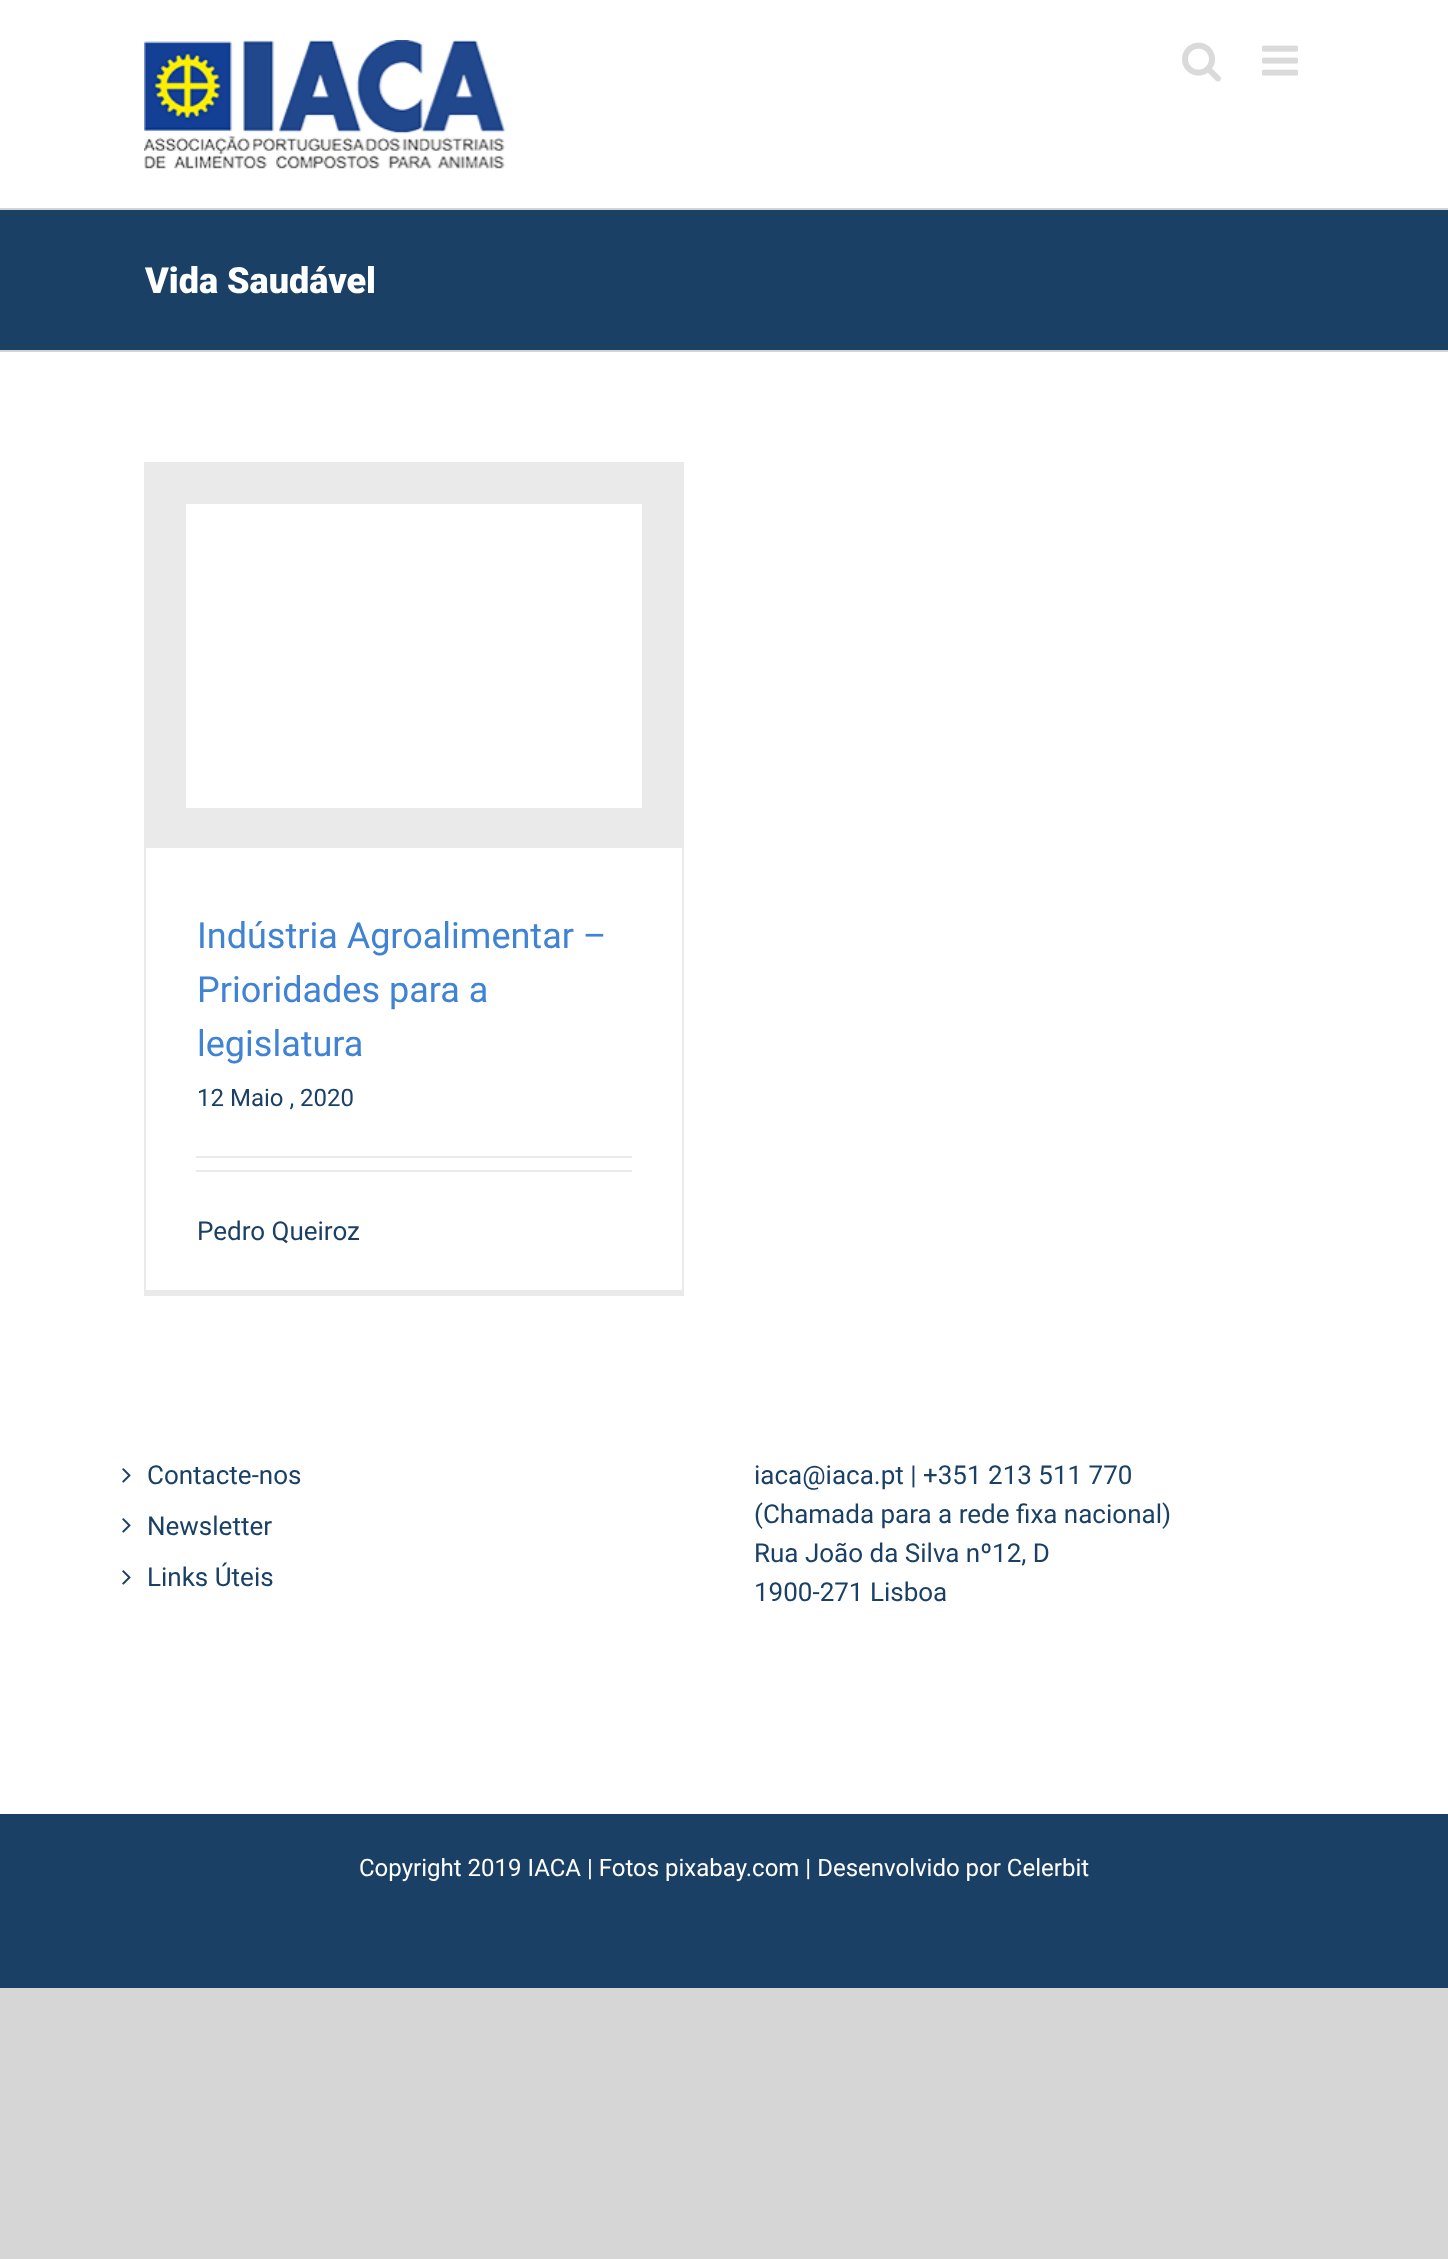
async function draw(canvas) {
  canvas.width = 1448
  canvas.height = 2259
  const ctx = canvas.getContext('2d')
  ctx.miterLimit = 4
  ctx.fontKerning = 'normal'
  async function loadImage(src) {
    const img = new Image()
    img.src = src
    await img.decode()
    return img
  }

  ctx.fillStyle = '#d7d6d6'
  ctx.fillRect(0, 0, 1448, 2259)
  ctx.fillStyle = '#fff'
  ctx.fillRect(0, 0, 1448, 1814)
  ctx.drawImage(await loadImage('image0.png'), 144, 40, 362, 129)
  ctx.drawImage(await loadImage('image1.png'), 1182, 42, 39, 40)
  ctx.drawImage(await loadImage('image2.png'), 1262, 45, 36, 31)
  ctx.fillStyle = '#1b4066'
  ctx.fillRect(0, 210, 1448, 140)
  ctx.fillStyle = '#d2d3d4'
  ctx.fillRect(0, 208, 1448, 2)
  ctx.fillRect(0, 350, 1448, 2)
  ctx.font = '900 36px Roboto'
  ctx.fillStyle = '#fff'
  ctx.fillText('Vida Saudável', 145, 293)
  ctx.fillStyle = '#ebeaea'
  ctx.fillRect(144, 462, 540, 2)
  ctx.fillRect(682, 462, 2, 834)
  ctx.fillRect(144, 1290, 540, 6)
  ctx.fillRect(144, 462, 2, 834)
  ctx.strokeStyle = '#ebeaea'
  ctx.lineWidth = 40
  ctx.strokeRect(166, 484, 496, 344)
  ctx.font = '36px Roboto'
  ctx.fillStyle = '#4082d4'
  ctx.fillText('Indústria Agroalimentar –', 197, 948)
  ctx.fillText('Prioridades para a', 197, 1002)
  ctx.fillText('legislatura', 197, 1056)
  ctx.font = '24px Roboto'
  ctx.fillStyle = '#1b4066'
  ctx.fillText('12 Maio , 2020', 197, 1106)
  ctx.fillStyle = '#ebeaea'
  ctx.fillRect(196, 1156, 436, 2)
  ctx.fillRect(196, 1170, 436, 2)
  ctx.font = '26px Roboto'
  ctx.fillStyle = '#1b4066'
  ctx.fillText('Pedro Queiroz', 197, 1240)
  ctx.drawImage(await loadImage('image3.png'), 122, 1468, 9, 15)
  ctx.fillText('Contacte-nos', 147, 1484)
  ctx.drawImage(await loadImage('image3.png'), 122, 1518, 9, 15)
  ctx.fillText('Newsletter', 147, 1535)
  ctx.drawImage(await loadImage('image3.png'), 122, 1570, 9, 15)
  ctx.fillText('Links Úteis', 147, 1586)
  ctx.fillText('iaca@iaca.pt | +351 213 511 770', 754, 1484)
  ctx.fillText('(Chamada para a rede fixa nacional)', 754, 1523)
  ctx.fillText('Rua João da Silva nº12, D', 754, 1562)
  ctx.fillText('1900-271 Lisboa', 754, 1601)
  ctx.fillRect(0, 1814, 1448, 174)
  ctx.font = '24px Roboto'
  ctx.fillStyle = '#fff'
  ctx.fillText('Copyright 2019 IACA | Fotos pixabay.com | Desenvolvido por Celerbit', 359, 1876)
}

draw(document.querySelector('canvas'))
